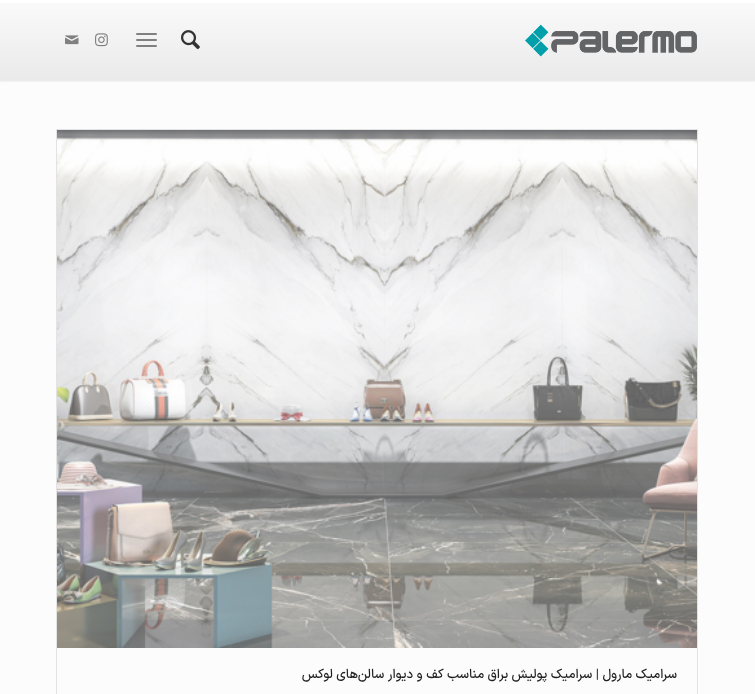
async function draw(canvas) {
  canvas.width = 755
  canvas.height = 694
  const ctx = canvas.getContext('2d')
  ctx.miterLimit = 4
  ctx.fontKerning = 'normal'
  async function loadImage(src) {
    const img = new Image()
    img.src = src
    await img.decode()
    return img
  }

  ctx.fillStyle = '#fcfcfc'
  ctx.fillRect(0, 0, 755, 694)
  ctx.fillStyle = '#0000001a'
  ctx.filter = 'blur(1px)'
  ctx.beginPath()
  ctx.rect(-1, -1, 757, 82)
  ctx.fill()
  ctx.filter = 'none'
  ctx.fillStyle = '#fff'
  ctx.fillRect(0, 0, 755, 80)
  ctx.drawImage(await loadImage('image0.png'), 0, 3, 755, 77)
  ctx.drawImage(await loadImage('image1.png'), 525, 24, 172, 33)
  ctx.drawImage(await loadImage('image2.png'), 181, 30, 19, 20)
  ctx.fillStyle = '#808080'
  ctx.beginPath()
  ctx.roundRect(136, 39, 21, 2, 1)
  ctx.fill()
  ctx.beginPath()
  ctx.roundRect(136, 33, 21, 2, 1)
  ctx.fill()
  ctx.beginPath()
  ctx.roundRect(136, 45, 21, 2, 1)
  ctx.fill()
  ctx.drawImage(await loadImage('image3.png'), 95, 33, 13, 14)
  ctx.drawImage(await loadImage('image4.png'), 65, 35, 14, 10)
  ctx.strokeStyle = '#e3e3e3'
  ctx.strokeRect(56.5, 129.5, 641, 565)
  ctx.drawImage(await loadImage('image5.png'), 57, 130, 640, 518)
  ctx.direction = 'rtl'
  ctx.font = '500 13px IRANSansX'
  ctx.fillStyle = '#1f1f1f'
  ctx.fillText('سرامیک مارول | سرامیک پولیش براق مناسب کف و دیوار سالن‌های لوکس', 677, 678)
}

draw(document.querySelector('canvas'))
